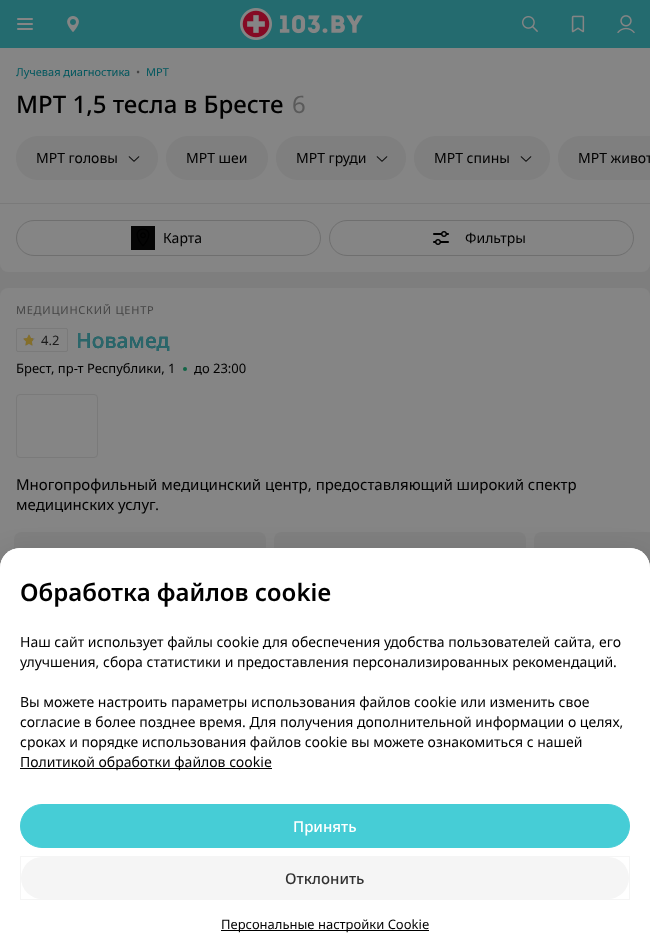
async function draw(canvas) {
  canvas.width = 650
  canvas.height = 948
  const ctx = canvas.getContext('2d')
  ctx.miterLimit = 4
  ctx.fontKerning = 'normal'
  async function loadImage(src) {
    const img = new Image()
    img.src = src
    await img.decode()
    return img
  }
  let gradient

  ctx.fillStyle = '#7e7e7e'
  ctx.fillRect(0, 0, 650, 948)
  ctx.fillStyle = '#246b6f'
  ctx.fillRect(0, 0, 650, 48)
  ctx.drawImage(await loadImage('image0.png'), 17, 18, 16, 12)
  ctx.drawImage(await loadImage('image1.png'), 67, 16, 12, 16)
  ctx.drawImage(await loadImage('image2.png'), 240, 8, 123, 32)
  ctx.drawImage(await loadImage('image3.png'), 522, 16, 16, 16)
  ctx.drawImage(await loadImage('image4.png'), 571, 15, 14, 18)
  ctx.drawImage(await loadImage('image5.png'), 617, 15, 18, 18)
  ctx.fillStyle = '#858585'
  ctx.fillRect(0, 48, 650, 155)
  ctx.font = '11px Noto Sans'
  ctx.fillStyle = '#00575e'
  ctx.fillText('Лучевая диагностика', 16, 76)
  ctx.fillStyle = '#454545'
  ctx.fillText('•', 136, 76)
  ctx.fillStyle = '#00575e'
  ctx.fillText('МРТ', 146, 76)
  ctx.font = '500 24px Noto Sans'
  ctx.fillStyle = '#000'
  ctx.fillText('МРТ 1,5 тесла в Бресте', 16, 113)
  ctx.font = '24px Noto Sans'
  ctx.fillStyle = '#5a5a5a'
  ctx.fillText('6', 292, 113)
  ctx.fillStyle = '#7f7f7f'
  ctx.beginPath()
  ctx.roundRect(16, 136, 142, 44, 22)
  ctx.fill()
  ctx.font = '14px Noto Sans'
  ctx.fillStyle = '#000'
  ctx.fillText('МРТ головы', 36, 163)
  ctx.drawImage(await loadImage('image6.png'), 128, 156, 12, 6)
  ctx.fillStyle = '#7f7f7f'
  ctx.beginPath()
  ctx.roundRect(166, 136, 102, 44, 22)
  ctx.fill()
  ctx.fillStyle = '#000'
  ctx.fillText('МРТ шеи', 186, 163)
  ctx.fillStyle = '#7f7f7f'
  ctx.beginPath()
  ctx.roundRect(276, 136, 130, 44, 22)
  ctx.fill()
  ctx.fillStyle = '#000'
  ctx.fillText('МРТ груди', 296, 163)
  ctx.drawImage(await loadImage('image6.png'), 376, 156, 12, 6)
  ctx.fillStyle = '#7f7f7f'
  ctx.beginPath()
  ctx.roundRect(414, 136, 136, 44, 22)
  ctx.fill()
  ctx.fillStyle = '#000'
  ctx.fillText('МРТ спины', 434, 163)
  ctx.drawImage(await loadImage('image6.png'), 520, 156, 12, 6)
  ctx.fillStyle = '#7f7f7f'
  ctx.beginPath()
  ctx.roundRect(558, 136, 92, 44, [22, 0, 0, 22])
  ctx.fill()
  ctx.fillStyle = '#000'
  ctx.fillText('МРТ живот', 578, 163)
  ctx.fillStyle = '#7a7a7a'
  ctx.fillRect(0, 203, 650, 1)
  ctx.fillStyle = '#858585'
  ctx.beginPath()
  ctx.roundRect(0, 204, 650, 68, [0, 0, 8, 8])
  ctx.fill()
  ctx.beginPath()
  ctx.roundRect(16.5, 220.5, 304, 35, 17.5)
  ctx.strokeStyle = '#6f6f6f'
  ctx.stroke()
  ctx.drawImage(await loadImage('image7.png'), 131, 226, 24, 24)
  ctx.fillStyle = '#000'
  ctx.fillText('Карта', 163, 243)
  ctx.beginPath()
  ctx.roundRect(329.5, 220.5, 304, 35, 17.5)
  ctx.stroke()
  ctx.drawImage(await loadImage('image8.png'), 433, 231, 16, 14)
  ctx.fillText('Фильтры', 465, 243)
  ctx.fillStyle = '#858585'
  ctx.beginPath()
  ctx.roundRect(0, 288, 650, 540, 8)
  ctx.fill()
  ctx.letterSpacing = '0.75px'
  ctx.font = '11px Noto Sans'
  ctx.fillStyle = '#454545'
  ctx.fillText('МЕДИЦИНСКИЙ ЦЕНТР', 16, 314)
  ctx.beginPath()
  ctx.roundRect(16.5, 328.5, 51, 23, 1.5)
  ctx.strokeStyle = '#7a7a7a'
  ctx.stroke()
  ctx.drawImage(await loadImage('image10.png'), 23, 335, 12, 11)
  ctx.drawImage(await loadImage('image9.png'), 23, 334, 10, 12)
  ctx.letterSpacing = '0px'
  ctx.font = '13px Noto Sans'
  ctx.fillStyle = '#1b1b1b'
  ctx.fillText('4.2', 41, 345)
  ctx.font = '500 21px Noto Sans'
  ctx.fillStyle = '#00575e'
  ctx.fillText('Новамед', 76, 348)
  ctx.fillStyle = '#2b666a'
  ctx.fillText('Новамед', 76, 348)
  ctx.font = '13px Noto Sans'
  ctx.fillStyle = '#000'
  ctx.fillText('Брест, пр-т Республики, 1', 16, 373)
  ctx.fillStyle = '#116546'
  ctx.beginPath()
  ctx.arc(185, 369, 2, 0, 2 * Math.PI)
  ctx.fill()
  ctx.fillStyle = '#000'
  ctx.fillText('до 23:00', 194, 373)
  ctx.beginPath()
  ctx.roundRect(16.5, 394.5, 81, 63, 3.5)
  ctx.stroke()
  ctx.font = '15px Noto Sans'
  ctx.fillText('Многопрофильный медицинский центр, предоставляющий широкий спектр', 16, 490)
  ctx.fillText('медицинских услуг.', 16, 510)
  ctx.fillStyle = '#7f7f7f'
  ctx.beginPath()
  ctx.roundRect(14, 532, 252, 116, 8)
  ctx.fill()
  ctx.beginPath()
  ctx.roundRect(274, 532, 252, 116, 8)
  ctx.fill()
  ctx.beginPath()
  ctx.roundRect(534, 532, 116, 116, [8, 0, 0, 8])
  ctx.fill()
  ctx.fillStyle = '#00000029'
  ctx.filter = 'blur(15px)'
  ctx.beginPath()
  ctx.roundRect(0, 558, 650, 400, 20)
  ctx.fill()
  ctx.filter = 'none'
  ctx.fillStyle = '#fff'
  ctx.beginPath()
  ctx.roundRect(0, 548, 650, 400, [20, 20, 0, 0])
  ctx.fill()
  gradient = ctx.createLinearGradient(325, 576, 325, 548)
  gradient.addColorStop(0, '#ffffff3d')
  gradient.addColorStop(0.45, '#fff')
  gradient.addColorStop(1, '#fff')
  ctx.fillStyle = gradient
  ctx.beginPath()
  ctx.roundRect(0, 548, 650, 28, [20, 20, 0, 0])
  ctx.fill()
  ctx.font = '600 24px Noto Sans'
  ctx.fillStyle = '#000'
  ctx.fillText('Обработка файлов cookie', 20, 601)
  ctx.font = '14px Noto Sans'
  ctx.fillText('Наш сайт использует файлы cookie для обеспечения удобства пользователей сайта, его', 20, 647)
  ctx.fillText('улучшения, сбора статистики и предоставления персонализированных рекомендаций.', 20, 667)
  ctx.fillText('Вы можете настроить параметры использования файлов cookie или изменить свое', 20, 707)
  ctx.fillText('согласие в более позднее время. Для получения дополнительной информации о целях,', 20, 727)
  ctx.fillText('сроках и порядке использования файлов cookie вы можете ознакомиться с нашей', 20, 747)
  ctx.fillRect(20, 768, 252, 1)
  ctx.fillText('Политикой обработки файлов cookie', 20, 767)
  ctx.fillStyle = '#46cdd6'
  ctx.beginPath()
  ctx.roundRect(20.5, 804.5, 609, 43, 21.5)
  ctx.fill()
  ctx.strokeStyle = '#46cdd6'
  ctx.stroke()
  ctx.font = '500 15px Noto Sans'
  ctx.fillStyle = '#fff'
  ctx.fillText('Принять', 293, 832)
  ctx.fillStyle = '#f5f5f5'
  ctx.beginPath()
  ctx.roundRect(21, 857, 608, 42, 21)
  ctx.fill()
  ctx.strokeStyle = '#0000000a'
  ctx.strokeRect(20.5, 856.5, 609, 43)
  ctx.fillStyle = '#313131'
  ctx.fillText('Отклонить', 285, 884)
  ctx.fillStyle = '#000'
  ctx.fillRect(221, 930, 208, 1)
  ctx.font = '13px Noto Sans'
  ctx.fillText('Персональные настройки Cookie', 221, 929)
}

draw(document.querySelector('canvas'))
